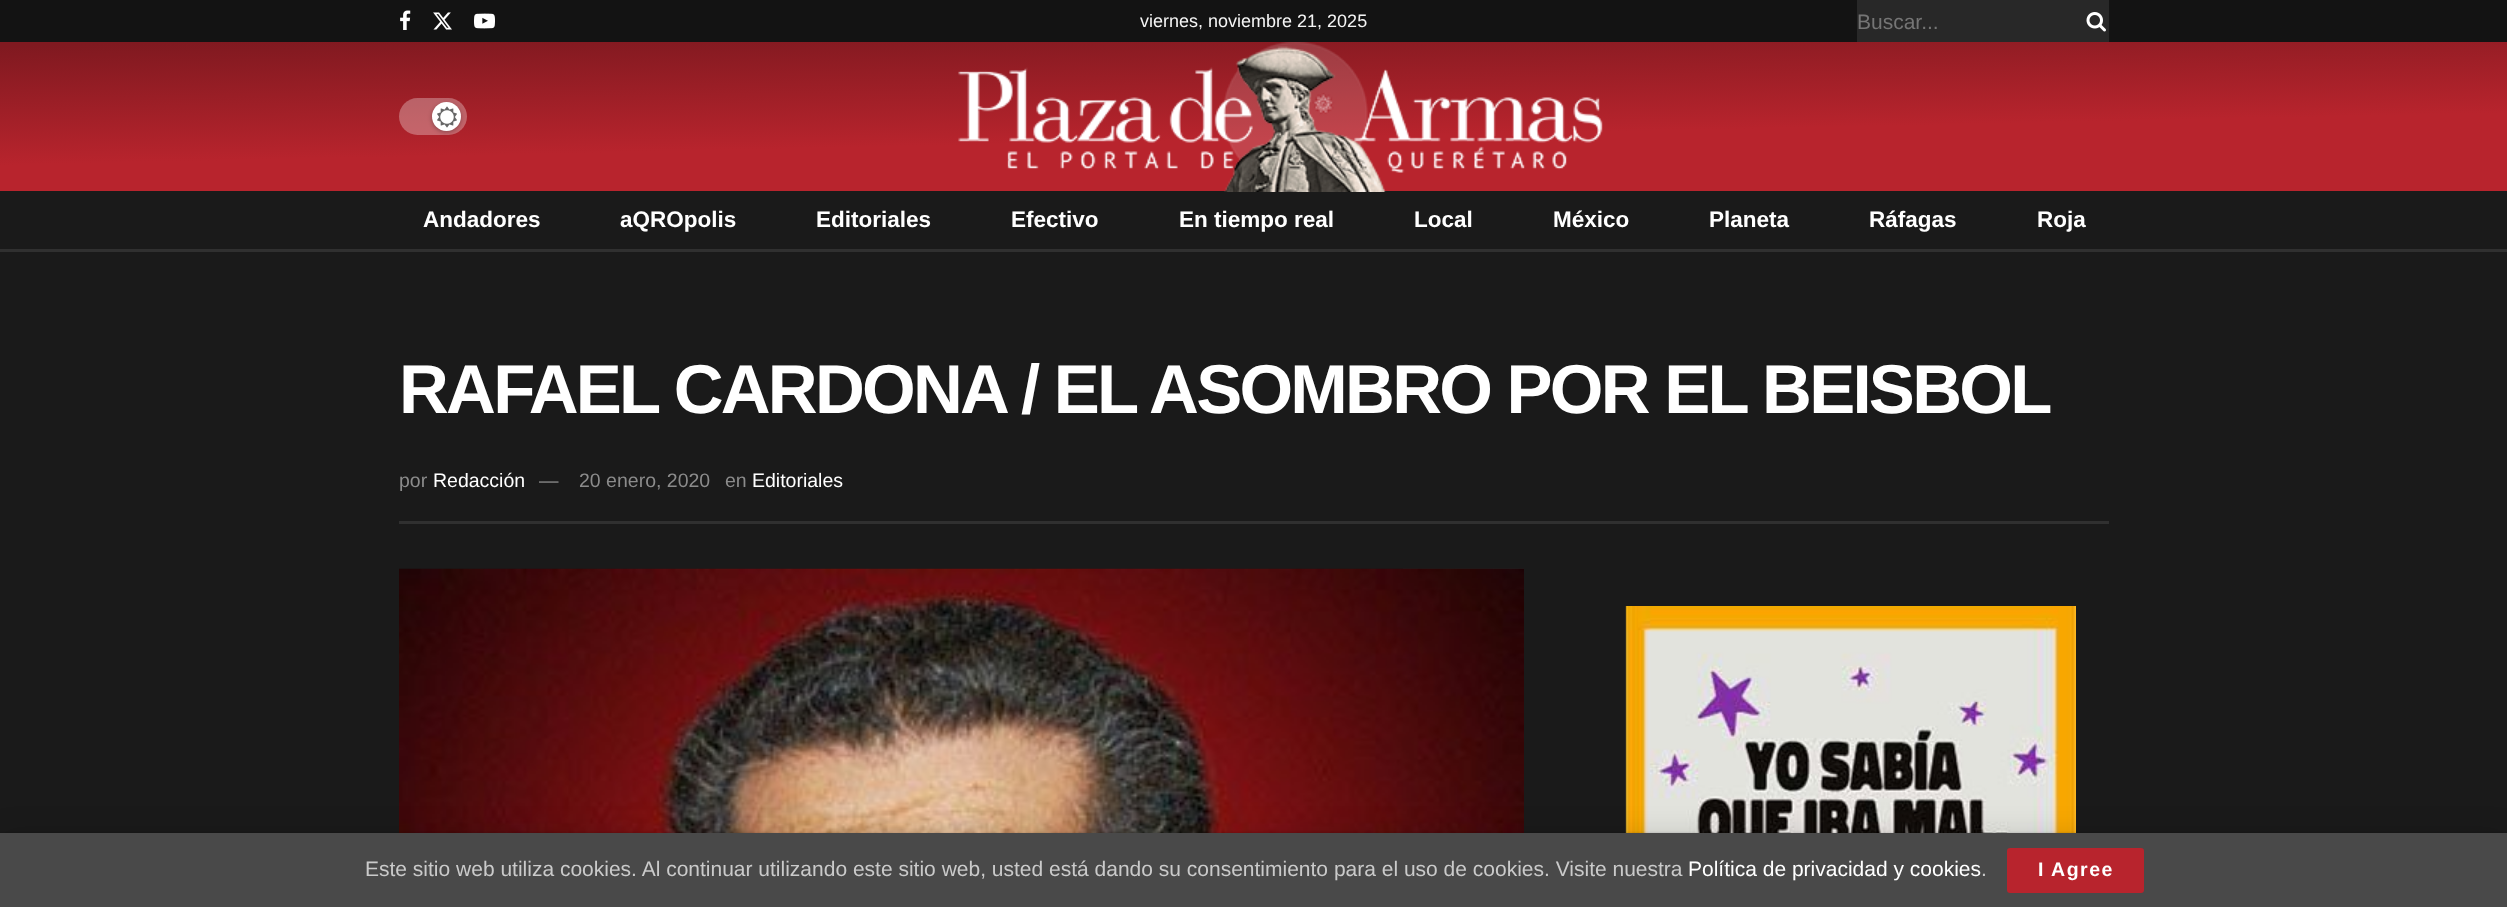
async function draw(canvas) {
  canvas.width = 2507
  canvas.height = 907
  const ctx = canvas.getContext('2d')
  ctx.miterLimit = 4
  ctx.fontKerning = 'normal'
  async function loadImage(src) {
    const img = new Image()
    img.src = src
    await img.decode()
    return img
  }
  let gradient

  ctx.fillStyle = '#1a1a1a'
  ctx.fillRect(0, 0, 2507, 907)
  ctx.fillStyle = '#131313'
  ctx.fillRect(0, 0, 2507, 42)
  ctx.drawImage(await loadImage('image0.png'), 400, 10, 11, 20)
  ctx.drawImage(await loadImage('image1.png'), 433, 12, 19, 18)
  ctx.drawImage(await loadImage('image2.png'), 474, 13, 21, 16)
  ctx.font = '18px Liberation Sans'
  ctx.fillStyle = '#f5f5f5'
  ctx.fillText('viernes, noviembre 21, 2025', 1140, 27)
  ctx.fillStyle = '#282828'
  ctx.fillRect(1857, 0, 252, 42)
  ctx.font = '21px Liberation Sans'
  ctx.fillStyle = '#757575'
  ctx.fillText('Buscar...', 1857, 29)
  ctx.drawImage(await loadImage('image3.png'), 2086, 12, 20, 20)
  gradient = ctx.createLinearGradient(1256, 212, 1252, 20)
  gradient.addColorStop(0.38, '#b8242d')
  gradient.addColorStop(1, '#801920')
  ctx.fillStyle = gradient
  ctx.fillRect(0, 42, 2507, 149)
  ctx.fillStyle = '#ffffff4d'
  ctx.beginPath()
  ctx.roundRect(399, 98, 68, 37, 18.5)
  ctx.fill()
  ctx.fillStyle = '#0000004d'
  ctx.filter = 'blur(2px)'
  ctx.beginPath()
  ctx.roundRect(432, 104, 29, 28, 14)
  ctx.fill()
  ctx.filter = 'none'
  ctx.fillStyle = '#fff'
  ctx.beginPath()
  ctx.arc(446.5, 116.5, 14.5, 0, 2 * Math.PI)
  ctx.fill()
  ctx.drawImage(await loadImage('image4.png'), 437, 106, 20, 22)
  ctx.drawImage(await loadImage('image5.png'), 958, 42, 645, 150)
  ctx.fillStyle = '#303030'
  ctx.fillRect(0, 249, 2507, 3)
  ctx.font = 'bold 22.5px Liberation Sans'
  ctx.fillStyle = '#fff'
  ctx.fillText('Andadores', 423, 227)
  ctx.fillText('aQROpolis', 620, 227)
  ctx.fillText('Editoriales', 816, 227)
  ctx.fillText('Efectivo', 1011, 227)
  ctx.fillText('En tiempo real', 1179, 227)
  ctx.fillText('Local', 1414, 227)
  ctx.fillText('México', 1553, 227)
  ctx.fillText('Planeta', 1709, 227)
  ctx.fillText('Ráfagas', 1869, 227)
  ctx.fillText('Roja', 2037, 227)
  ctx.fillStyle = '#303030'
  ctx.fillRect(399, 521, 1710, 3)
  ctx.letterSpacing = '-2.75px'
  ctx.font = 'bold 69px Liberation Sans'
  ctx.fillStyle = '#fff'
  ctx.fillText('RAFAEL CARDONA / EL ASOMBRO POR EL BEISBOL', 399, 413)
  ctx.letterSpacing = '0px'
  ctx.font = '19.5px Liberation Sans'
  ctx.fillStyle = '#8b8b8b'
  ctx.fillText('por', 399, 487)
  ctx.fillStyle = '#fff'
  ctx.fillText('Redacción', 433, 487)
  ctx.fillStyle = '#8b8b8b'
  ctx.fillText('—', 539, 487)
  ctx.fillText('20 enero, 2020', 579, 487)
  ctx.fillText('en', 725, 487)
  ctx.fillStyle = '#fff'
  ctx.fillText('Editoriales', 752, 487)
  ctx.drawImage(await loadImage('image7.png'), 1403, 568, 121, 1)
  ctx.drawImage(await loadImage('image6.png'), 399, 568, 1125, 265)
  ctx.drawImage(await loadImage('image8.png'), 1625, 606, 451, 227)
  ctx.fillStyle = '#00000026'
  ctx.filter = 'blur(15px)'
  ctx.beginPath()
  ctx.rect(0, 836, 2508, 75)
  ctx.fill()
  ctx.filter = 'none'
  ctx.fillStyle = '#00000033'
  ctx.filter = 'blur(1px)'
  ctx.beginPath()
  ctx.rect(0, 833, 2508, 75)
  ctx.fill()
  ctx.filter = 'none'
  ctx.fillStyle = '#494949'
  ctx.fillRect(0, 833, 2507, 74)
  ctx.font = '21px Liberation Sans'
  ctx.fillStyle = '#cacaca'
  ctx.fillText('Este sitio web utiliza cookies. Al continuar utilizando este sitio web, usted está dando su consentimiento para el uso de cookies. Visite nuestra', 365, 876)
  ctx.fillStyle = '#fff'
  ctx.fillText('Política de privacidad y cookies', 1688, 876)
  ctx.fillStyle = '#cacaca'
  ctx.fillText('.', 1981, 876)
  ctx.fillStyle = '#b8242d'
  ctx.beginPath()
  ctx.roundRect(2007, 848, 137, 45, 3)
  ctx.fill()
  ctx.letterSpacing = '1.5px'
  ctx.font = 'bold 19.5px Liberation Sans'
  ctx.fillStyle = '#fff'
  ctx.fillText('I Agree', 2038, 876)
}

draw(document.querySelector('canvas'))
